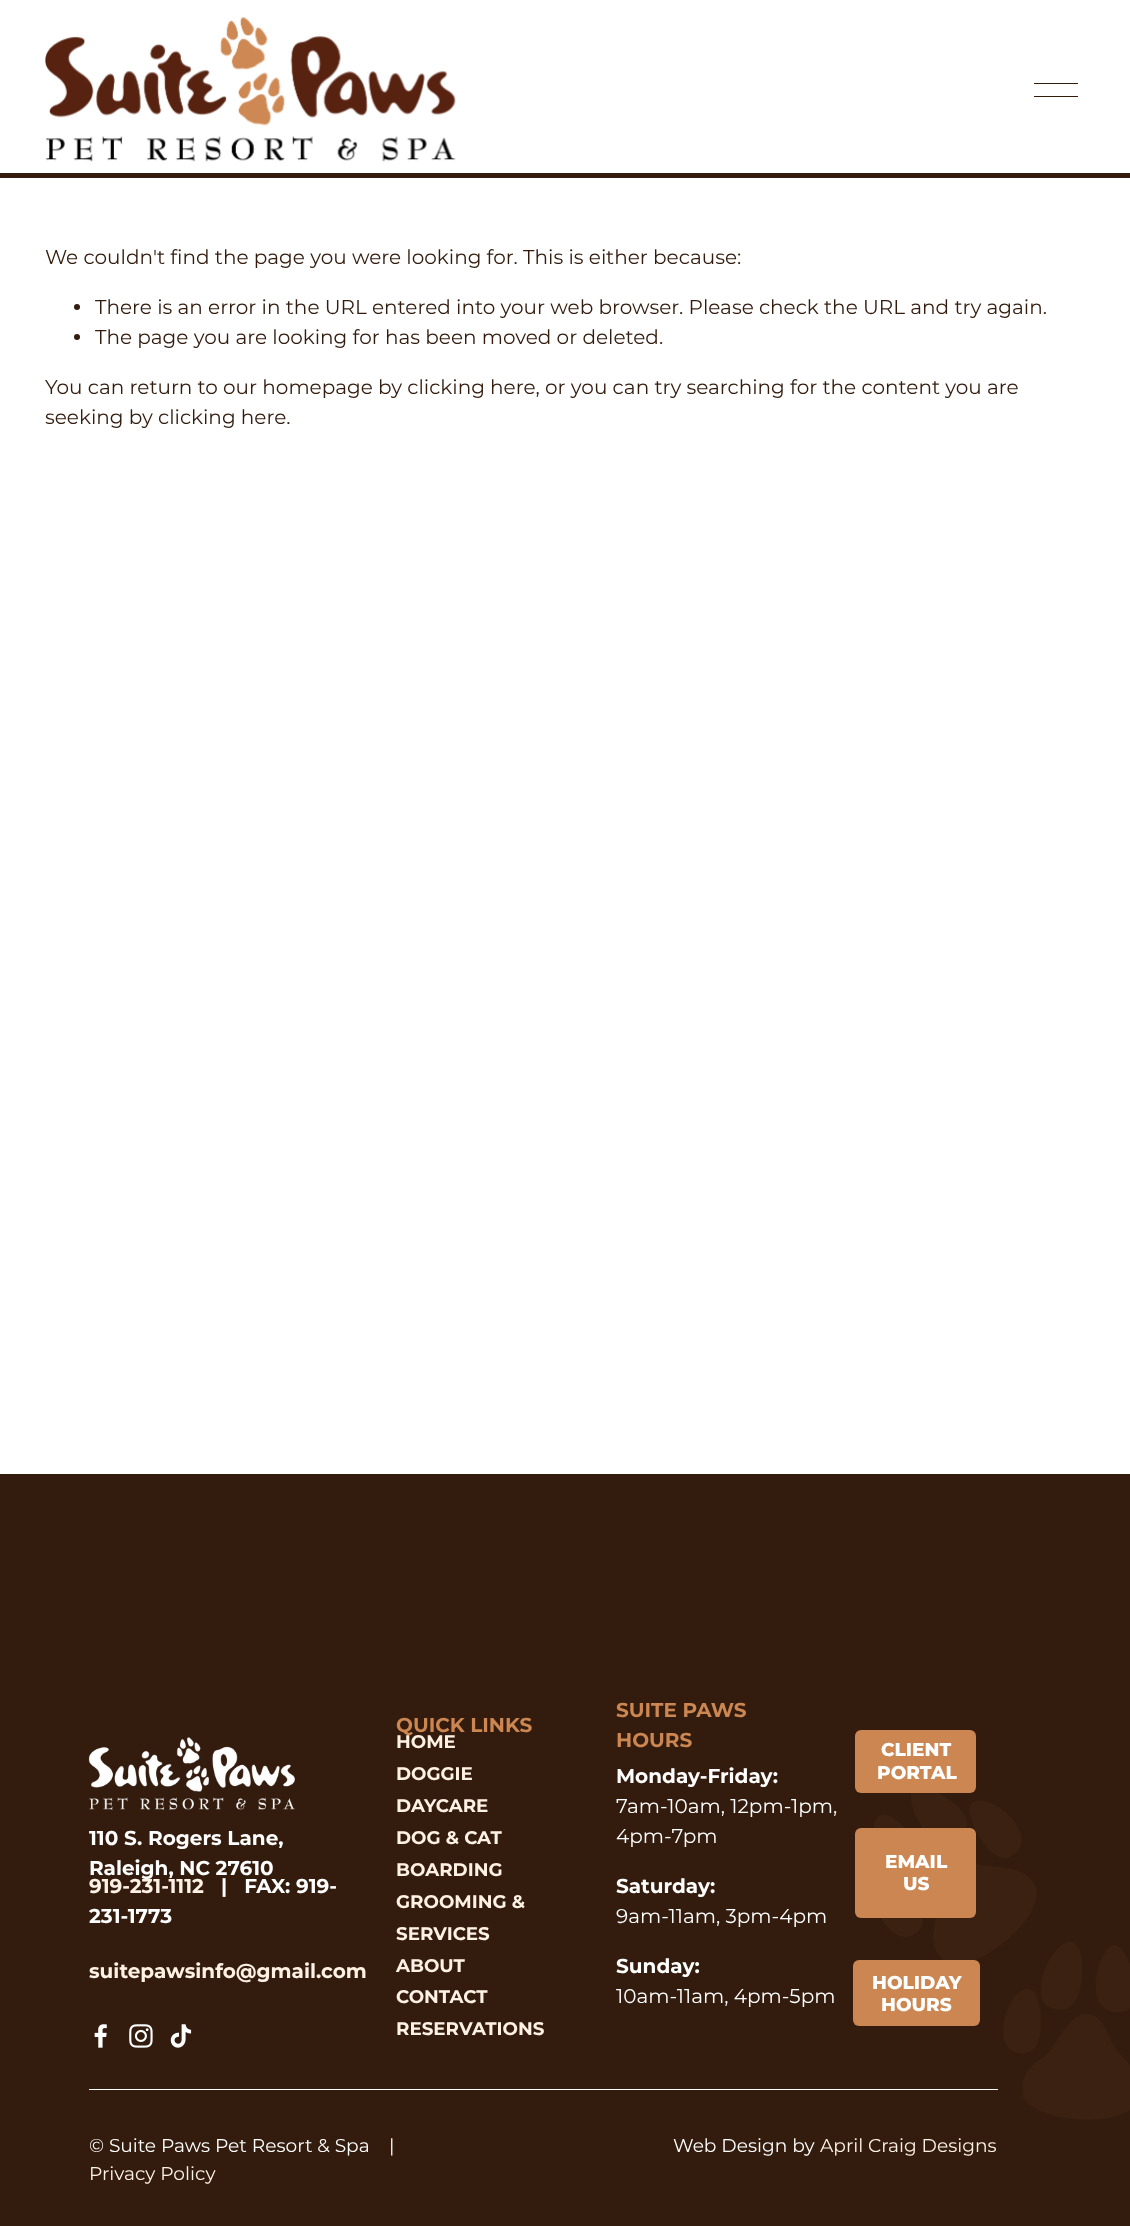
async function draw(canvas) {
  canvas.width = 1130
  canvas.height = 2226
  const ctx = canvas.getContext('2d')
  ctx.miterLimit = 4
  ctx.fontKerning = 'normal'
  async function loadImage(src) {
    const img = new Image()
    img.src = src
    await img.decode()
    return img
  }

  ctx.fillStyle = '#fff'
  ctx.fillRect(0, 0, 1130, 2226)
  ctx.drawImage(await loadImage('image0.png'), 45, 17, 411, 145)
  ctx.fillStyle = '#331c0e'
  ctx.fillRect(1034, 83, 44, 1)
  ctx.fillRect(1034, 96, 44, 1)
  ctx.fillRect(0, 173, 1130, 5)
  ctx.font = '20px Montserrat'
  ctx.fillText('We couldn\'t find the page you were looking for. This is either because:', 45, 264)
  ctx.beginPath()
  ctx.arc(77, 307, 3, 0, 2 * Math.PI)
  ctx.fill()
  ctx.fillText('There is an error in the URL entered into your web browser. Please check the URL and try again.', 95, 314)
  ctx.beginPath()
  ctx.arc(77, 337, 3, 0, 2 * Math.PI)
  ctx.fill()
  ctx.fillText('The page you are looking for has been moved or deleted.', 95, 344)
  ctx.fillText('You can return to our homepage by clicking here, or you can try searching for the content you are', 45, 394)
  ctx.fillText('seeking by clicking here.', 45, 424)
  ctx.fillRect(0, 1474, 1130, 752)
  ctx.font = 'bold 20px Montserrat'
  ctx.fillStyle = '#cb8651'
  ctx.fillText('QUICK LINKS', 396, 1732)
  ctx.fillText('SUITE PAWS', 616, 1717)
  ctx.fillText('HOURS', 616, 1747)
  ctx.drawImage(await loadImage('image1.png'), 88, 1737, 207, 73)
  ctx.font = 'bold 18.25px Montserrat'
  ctx.fillStyle = '#fff2e5'
  ctx.fillText('HOME', 396, 1748)
  ctx.fillText('DOGGIE', 396, 1780)
  ctx.fillText('DAYCARE', 396, 1812)
  ctx.fillText('DOG & CAT', 396, 1844)
  ctx.fillText('BOARDING', 396, 1876)
  ctx.fillText('GROOMING &', 396, 1908)
  ctx.fillText('SERVICES', 396, 1940)
  ctx.fillText('ABOUT', 396, 1972)
  ctx.fillText('CONTACT', 396, 2003)
  ctx.fillText('RESERVATIONS', 396, 2035)
  ctx.fillStyle = '#cb8651'
  ctx.beginPath()
  ctx.roundRect(855, 1730, 121, 63, 6)
  ctx.fill()
  ctx.font = '800 18.5px Montserrat'
  ctx.fillStyle = '#fff'
  ctx.fillText('CLIENT', 881, 1756)
  ctx.fillText('PORTAL', 877, 1779)
  ctx.font = 'bold 20px Montserrat'
  ctx.fillText('110 S. Rogers Lane,', 89, 1845)
  ctx.fillText('Raleigh, NC 27610', 89, 1875)
  ctx.fillText('Monday-Friday:', 616, 1783)
  ctx.font = '20px Montserrat'
  ctx.fillText('7am-10am, 12pm-1pm,', 616, 1813)
  ctx.fillText('4pm-7pm', 616, 1843)
  ctx.font = 'bold 20px Montserrat'
  ctx.fillText('Saturday:', 616, 1893)
  ctx.font = '20px Montserrat'
  ctx.fillText('9am-11am, 3pm-4pm', 616, 1923)
  ctx.font = 'bold 20px Montserrat'
  ctx.fillText('Sunday:', 616, 1973)
  ctx.font = '20px Montserrat'
  ctx.fillText('10am-11am, 4pm-5pm', 616, 2003)
  ctx.drawImage(await loadImage('image2.png'), 874, 1793, 256, 327)
  ctx.fillStyle = '#cb8651'
  ctx.beginPath()
  ctx.roundRect(855, 1828, 121, 90, 6)
  ctx.fill()
  ctx.font = '800 18.5px Montserrat'
  ctx.fillStyle = '#fff'
  ctx.fillText('EMAIL', 885, 1868)
  ctx.fillText('US', 903, 1890)
  ctx.font = 'bold 20px Montserrat'
  ctx.fillStyle = '#fff2e5'
  ctx.fillText('919-231-1112', 89, 1893)
  ctx.fillStyle = '#fff'
  ctx.fillText('|   FAX: 919-', 221, 1893)
  ctx.fillText('231-1773', 89, 1923)
  ctx.fillStyle = '#fff2e5'
  ctx.fillText('suitepawsinfo@gmail.com', 89, 1978)
  ctx.fillStyle = '#cb8651'
  ctx.beginPath()
  ctx.roundRect(853, 1960, 127, 66, 6)
  ctx.fill()
  ctx.font = '800 18.5px Montserrat'
  ctx.fillStyle = '#fff'
  ctx.fillText('HOLIDAY', 872, 1989)
  ctx.fillText('HOURS', 881, 2011)
  ctx.drawImage(await loadImage('image3.png'), 94, 2024, 13, 24)
  ctx.drawImage(await loadImage('image4.png'), 129, 2024, 24, 24)
  ctx.drawImage(await loadImage('image5.png'), 170, 2024, 22, 24)
  ctx.fillRect(89, 2089, 909, 1)
  ctx.font = '18.6px Montserrat'
  ctx.fillText('© Suite Paws Pet Resort & Spa    |', 89, 2152)
  ctx.fillStyle = '#fff2e5'
  ctx.fillText('Privacy Policy', 89, 2180)
  ctx.fillStyle = '#fff'
  ctx.fillText('Web Design by', 673, 2152)
  ctx.fillStyle = '#fff2e5'
  ctx.fillText('April Craig Designs', 820, 2152)
}

draw(document.querySelector('canvas'))
